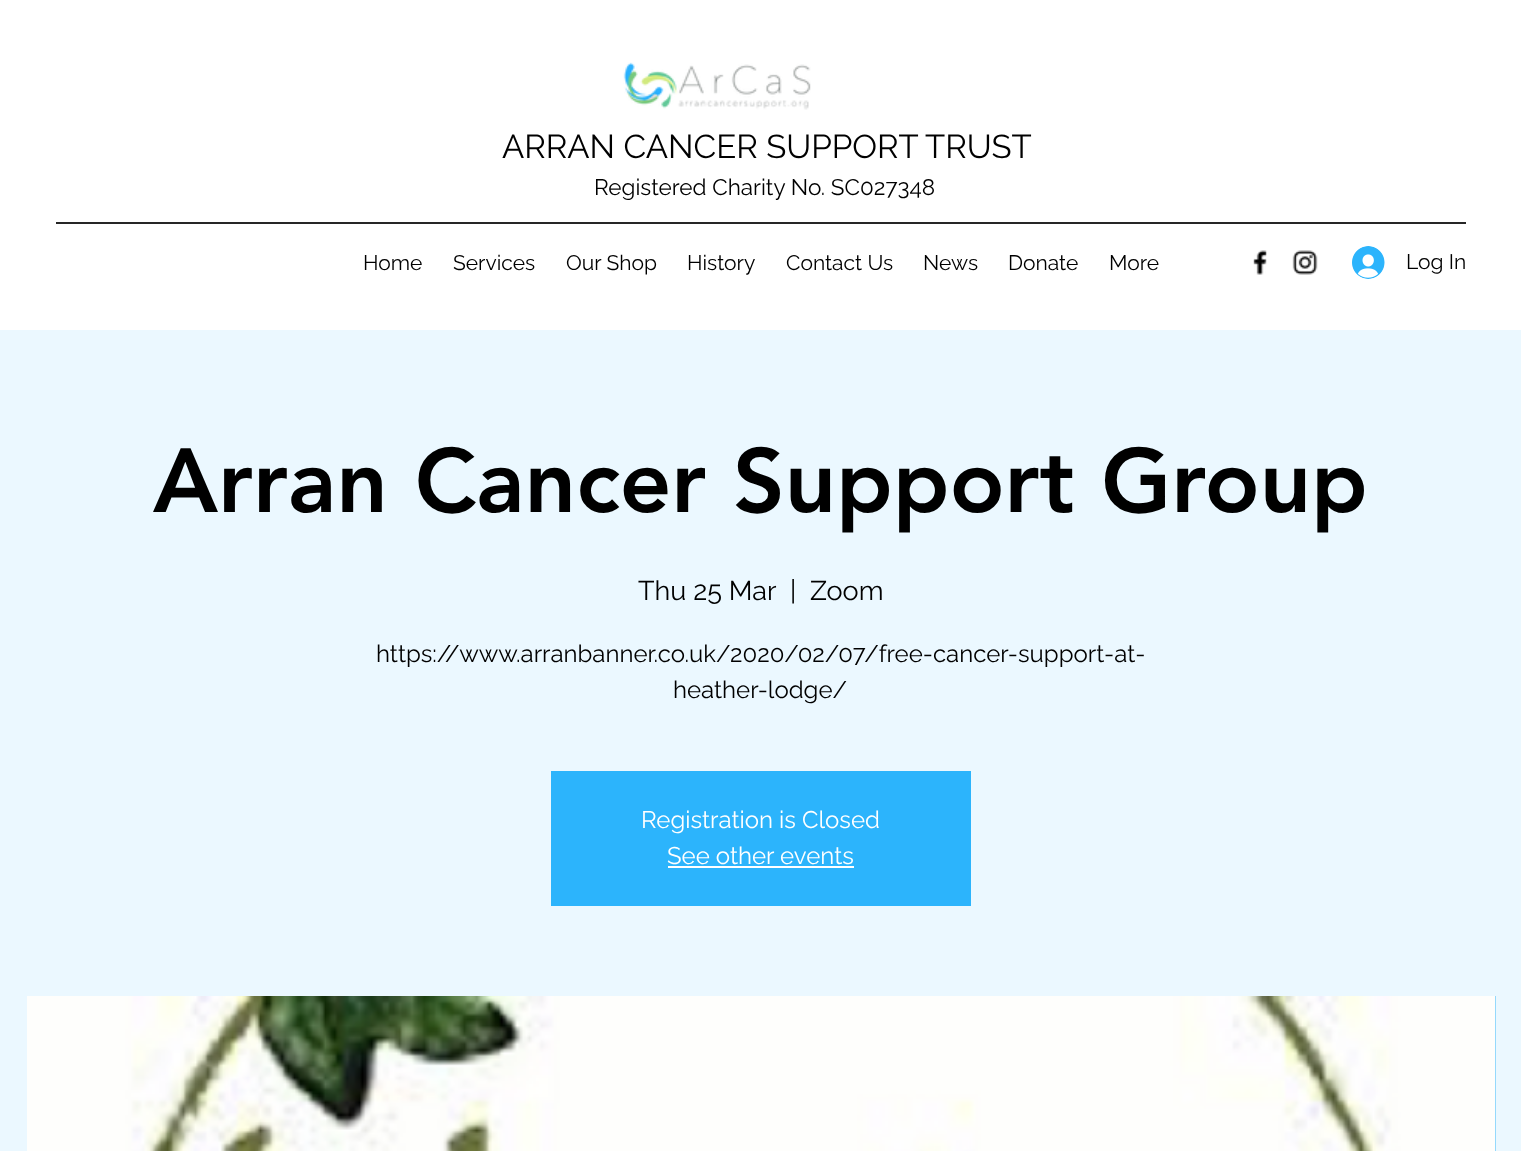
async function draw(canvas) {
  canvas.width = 1521
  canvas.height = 1151
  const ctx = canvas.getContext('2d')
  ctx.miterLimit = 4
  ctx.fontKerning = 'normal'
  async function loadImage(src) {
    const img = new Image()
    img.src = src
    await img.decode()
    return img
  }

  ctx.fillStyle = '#fff'
  ctx.fillRect(0, 0, 1521, 1151)
  ctx.drawImage(await loadImage('image0.png'), 623, 62, 188, 48)
  ctx.font = '33px Raleway'
  ctx.fillStyle = '#000'
  ctx.fillText('ARRAN CANCER SUPPORT TRUST', 502, 158)
  ctx.font = '22.5px Raleway'
  ctx.fillText('Registered Charity No. SC027348', 594, 195)
  ctx.fillStyle = '#262626'
  ctx.fillRect(56, 222, 1410, 2)
  ctx.font = '21px Raleway'
  ctx.fillStyle = '#000'
  ctx.fillText('Home', 363, 270)
  ctx.fillText('Services', 453, 270)
  ctx.fillText('Our Shop', 566, 270)
  ctx.fillText('History', 687, 270)
  ctx.fillText('Contact Us', 786, 270)
  ctx.fillText('News', 923, 270)
  ctx.fillText('Donate', 1008, 270)
  ctx.fillText('More', 1109, 270)
  ctx.drawImage(await loadImage('image1.png'), 1253, 250, 14, 25)
  ctx.drawImage(await loadImage('image2.png'), 1292, 250, 26, 25)
  ctx.drawImage(await loadImage('image3.png'), 1352, 246, 33, 33)
  ctx.fillText('Log In', 1406, 269)
  ctx.fillStyle = '#ebf8ff'
  ctx.fillRect(0, 330, 1521, 821)
  ctx.font = '900 90px "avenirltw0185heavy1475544"'
  ctx.fillStyle = '#000'
  ctx.fillText('Arran Cancer Support Group', 153, 512)
  ctx.font = '27px Raleway'
  ctx.fillText('Thu 25 Mar', 638, 600)
  ctx.fillText('|', 790, 600)
  ctx.fillText('Zoom', 810, 600)
  ctx.font = '24px Raleway'
  ctx.fillText('https://www.arranbanner.co.uk/2020/02/07/free-cancer-support-at-', 376, 662)
  ctx.fillText('heather-lodge/', 673, 698)
  ctx.fillStyle = '#2cb4fc'
  ctx.fillRect(551, 771, 420, 135)
  ctx.fillStyle = '#fff'
  ctx.fillText('Registration is Closed', 641, 828)
  ctx.fillText('See other events', 667, 864)
  ctx.fillRect(668, 866, 186, 2)
  ctx.fillStyle = '#72cdfd'
  ctx.fillRect(1495, 996, 1, 155)
  ctx.drawImage(await loadImage('image4.png'), 27, 996, 1469, 155)
}

draw(document.querySelector('canvas'))
